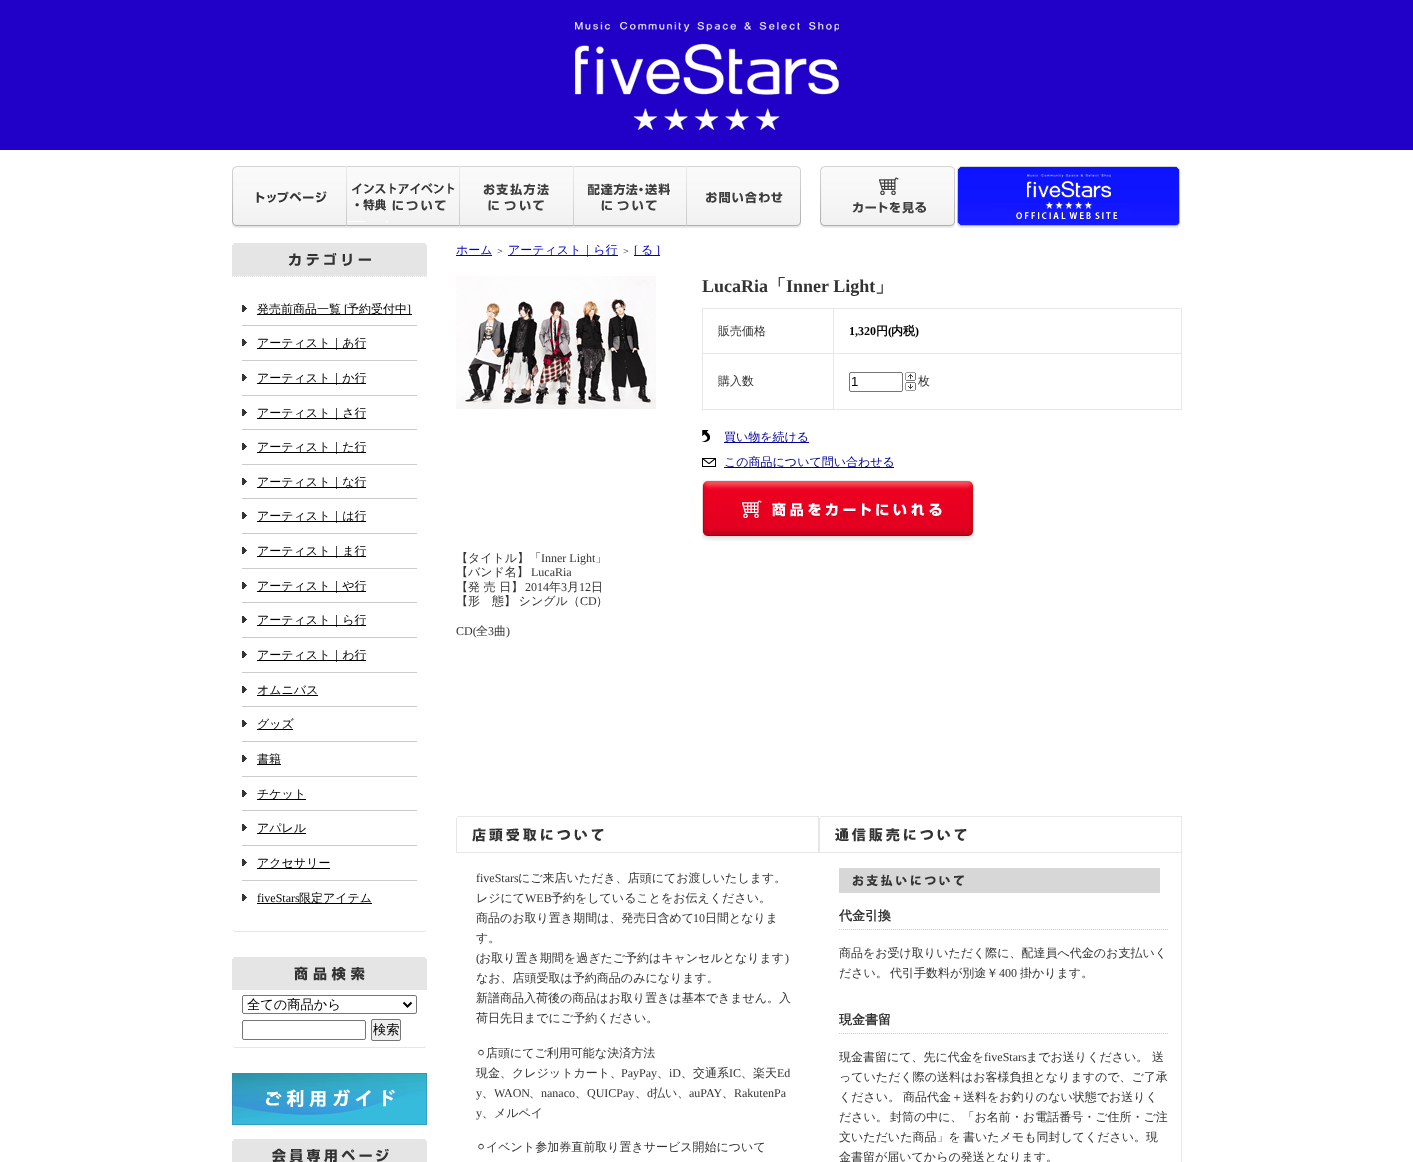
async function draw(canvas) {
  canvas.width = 1413
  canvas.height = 1162
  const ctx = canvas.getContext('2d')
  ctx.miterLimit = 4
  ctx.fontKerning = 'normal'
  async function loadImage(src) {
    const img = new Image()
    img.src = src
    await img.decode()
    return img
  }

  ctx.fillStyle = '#fff'
  ctx.fillRect(0, 0, 1413, 1162)
  ctx.fillStyle = '#2100c7'
  ctx.fillRect(0, 0, 1413, 150)
  ctx.drawImage(await loadImage('image0.png'), 575, 22, 264, 108)
  ctx.drawImage(await loadImage('image1.png'), 232, 166, 115, 62)
  ctx.drawImage(await loadImage('image2.png'), 347, 166, 113, 62)
  ctx.drawImage(await loadImage('image3.png'), 460, 166, 114, 62)
  ctx.drawImage(await loadImage('image4.png'), 574, 166, 113, 62)
  ctx.drawImage(await loadImage('image5.png'), 687, 166, 114, 62)
  ctx.drawImage(await loadImage('image6.png'), 820, 166, 135, 62)
  ctx.drawImage(await loadImage('image7.png'), 957, 166, 223, 62)
  ctx.drawImage(await loadImage('image8.png'), 232, 243, 195, 33)
  ctx.beginPath()
  ctx.moveTo(232, 276.5)
  ctx.lineTo(427, 276.5)
  ctx.strokeStyle = '#e6e6e6'
  ctx.setLineDash([1, 1])
  ctx.stroke()
  ctx.drawImage(await loadImage('image9.png'), 242, 305, 5, 7)
  ctx.fillStyle = '#000'
  ctx.fillRect(257, 314, 155, 1)
  ctx.font = '500 12px WenQuanYi Zen Hei'
  ctx.fillText('発売前商品一覧', 257, 313)
  ctx.font = '12px Liberation Serif'
  ctx.fillText('[', 344, 313)
  ctx.font = '500 12px WenQuanYi Zen Hei'
  ctx.fillText('予約受付中', 347, 313)
  ctx.font = '12px Liberation Serif'
  ctx.fillText(']', 407, 313)
  ctx.fillStyle = '#ccc'
  ctx.fillRect(242, 325, 175, 1)
  ctx.drawImage(await loadImage('image9.png'), 242, 339, 5, 7)
  ctx.fillStyle = '#000'
  ctx.fillRect(257, 348, 109, 1)
  ctx.font = '500 12px WenQuanYi Zen Hei'
  ctx.fillText('アーティスト｜あ行', 257, 347)
  ctx.fillStyle = '#ccc'
  ctx.fillRect(242, 360, 175, 1)
  ctx.drawImage(await loadImage('image9.png'), 242, 374, 5, 7)
  ctx.fillStyle = '#000'
  ctx.fillRect(257, 383, 109, 1)
  ctx.fillText('アーティスト｜か行', 257, 382)
  ctx.fillStyle = '#ccc'
  ctx.fillRect(242, 395, 175, 1)
  ctx.drawImage(await loadImage('image9.png'), 242, 409, 5, 7)
  ctx.fillStyle = '#000'
  ctx.fillRect(257, 418, 109, 1)
  ctx.fillText('アーティスト｜さ行', 257, 417)
  ctx.fillStyle = '#ccc'
  ctx.fillRect(242, 429, 175, 1)
  ctx.drawImage(await loadImage('image9.png'), 242, 443, 5, 7)
  ctx.fillStyle = '#000'
  ctx.fillRect(257, 452, 109, 1)
  ctx.fillText('アーティスト｜た行', 257, 451)
  ctx.fillStyle = '#ccc'
  ctx.fillRect(242, 464, 175, 1)
  ctx.drawImage(await loadImage('image9.png'), 242, 478, 5, 7)
  ctx.fillStyle = '#000'
  ctx.fillRect(257, 487, 109, 1)
  ctx.fillText('アーティスト｜な行', 257, 486)
  ctx.fillStyle = '#ccc'
  ctx.fillRect(242, 498, 175, 1)
  ctx.drawImage(await loadImage('image9.png'), 242, 512, 5, 7)
  ctx.fillStyle = '#000'
  ctx.fillRect(257, 521, 109, 1)
  ctx.fillText('アーティスト｜は行', 257, 520)
  ctx.fillStyle = '#ccc'
  ctx.fillRect(242, 533, 175, 1)
  ctx.drawImage(await loadImage('image9.png'), 242, 547, 5, 7)
  ctx.fillStyle = '#000'
  ctx.fillRect(257, 556, 109, 1)
  ctx.fillText('アーティスト｜ま行', 257, 555)
  ctx.fillStyle = '#ccc'
  ctx.fillRect(242, 568, 175, 1)
  ctx.drawImage(await loadImage('image9.png'), 242, 582, 5, 7)
  ctx.fillStyle = '#000'
  ctx.fillRect(257, 591, 109, 1)
  ctx.fillText('アーティスト｜や行', 257, 590)
  ctx.fillStyle = '#ccc'
  ctx.fillRect(242, 602, 175, 1)
  ctx.drawImage(await loadImage('image9.png'), 242, 616, 5, 7)
  ctx.fillStyle = '#000'
  ctx.fillRect(257, 625, 109, 1)
  ctx.fillText('アーティスト｜ら行', 257, 624)
  ctx.fillStyle = '#ccc'
  ctx.fillRect(242, 637, 175, 1)
  ctx.drawImage(await loadImage('image9.png'), 242, 651, 5, 7)
  ctx.fillStyle = '#000'
  ctx.fillRect(257, 660, 109, 1)
  ctx.fillText('アーティスト｜わ行', 257, 659)
  ctx.fillStyle = '#ccc'
  ctx.fillRect(242, 672, 175, 1)
  ctx.drawImage(await loadImage('image9.png'), 242, 686, 5, 7)
  ctx.fillStyle = '#000'
  ctx.fillRect(257, 695, 61, 1)
  ctx.fillText('オムニバス', 257, 694)
  ctx.fillStyle = '#ccc'
  ctx.fillRect(242, 706, 175, 1)
  ctx.drawImage(await loadImage('image9.png'), 242, 720, 5, 7)
  ctx.fillStyle = '#000'
  ctx.fillRect(257, 729, 36, 1)
  ctx.fillText('グッズ', 257, 728)
  ctx.fillStyle = '#ccc'
  ctx.fillRect(242, 741, 175, 1)
  ctx.drawImage(await loadImage('image9.png'), 242, 755, 5, 7)
  ctx.fillStyle = '#000'
  ctx.fillRect(257, 764, 24, 1)
  ctx.fillText('書籍', 257, 763)
  ctx.fillStyle = '#ccc'
  ctx.fillRect(242, 776, 175, 1)
  ctx.drawImage(await loadImage('image9.png'), 242, 790, 5, 7)
  ctx.fillStyle = '#000'
  ctx.fillRect(257, 799, 49, 1)
  ctx.fillText('チケット', 257, 798)
  ctx.fillStyle = '#ccc'
  ctx.fillRect(242, 810, 175, 1)
  ctx.drawImage(await loadImage('image9.png'), 242, 824, 5, 7)
  ctx.fillStyle = '#000'
  ctx.fillText('アパレル', 257, 832)
  ctx.fillRect(257, 833, 49, 1)
  ctx.fillStyle = '#ccc'
  ctx.fillRect(242, 845, 175, 1)
  ctx.drawImage(await loadImage('image9.png'), 242, 859, 5, 7)
  ctx.fillStyle = '#000'
  ctx.fillRect(257, 868, 73, 1)
  ctx.fillText('アクセサリー', 257, 867)
  ctx.fillStyle = '#ccc'
  ctx.fillRect(242, 880, 175, 1)
  ctx.drawImage(await loadImage('image9.png'), 242, 894, 5, 7)
  ctx.font = '12px Liberation Serif'
  ctx.fillStyle = '#000'
  ctx.fillText('fiveStars', 257, 902)
  ctx.fillRect(257, 903, 115, 1)
  ctx.font = '500 12px WenQuanYi Zen Hei'
  ctx.fillText('限定アイテム', 299, 902)
  ctx.drawImage(await loadImage('image10.png'), 233, 930, 193, 2)
  ctx.drawImage(await loadImage('image11.png'), 232, 957, 195, 33)
  ctx.beginPath()
  ctx.roundRect(242.5, 995.5, 174, 18, 1.5)
  ctx.strokeStyle = '#767676'
  ctx.setLineDash([])
  ctx.stroke()
  ctx.beginPath()
  ctx.moveTo(403.5, 1002.5)
  ctx.lineTo(407.5, 1006.5)
  ctx.lineTo(411.5, 1002.5)
  ctx.strokeStyle = '#000'
  ctx.lineWidth = 2
  ctx.stroke()
  ctx.font = '500 13.25px WenQuanYi Zen Hei'
  ctx.fillText('全ての商品から', 247, 1009)
  ctx.beginPath()
  ctx.roundRect(242.5, 1020.5, 123, 19, 1.5)
  ctx.strokeStyle = '#767676'
  ctx.lineWidth = 1
  ctx.stroke()
  ctx.fillStyle = '#efefef'
  ctx.beginPath()
  ctx.roundRect(371.5, 1019.5, 29, 21, 1.5)
  ctx.fill()
  ctx.stroke()
  ctx.fillStyle = '#000'
  ctx.fillText('検索', 373, 1034)
  ctx.drawImage(await loadImage('image10.png'), 233, 1046, 193, 2)
  ctx.drawImage(await loadImage('image12.png'), 232, 1073, 195, 52)
  ctx.drawImage(await loadImage('image13.png'), 232, 1139, 195, 23)
  ctx.fillStyle = '#00c'
  ctx.fillRect(456, 255, 36, 1)
  ctx.font = '500 12px WenQuanYi Zen Hei'
  ctx.fillText('ホーム', 456, 254)
  ctx.font = '500 10px WenQuanYi Zen Hei'
  ctx.fillStyle = '#333'
  ctx.fillText('＞', 495, 254)
  ctx.fillStyle = '#00c'
  ctx.fillRect(508, 255, 110, 1)
  ctx.font = '500 12px WenQuanYi Zen Hei'
  ctx.fillText('アーティスト｜ら行', 508, 254)
  ctx.font = '500 10px WenQuanYi Zen Hei'
  ctx.fillStyle = '#333'
  ctx.fillText('＞', 621, 254)
  ctx.fillStyle = '#00c'
  ctx.fillRect(634, 255, 26, 1)
  ctx.font = '12px Liberation Serif'
  ctx.fillText('[', 634, 254)
  ctx.font = '500 12px WenQuanYi Zen Hei'
  ctx.fillText('る', 641, 254)
  ctx.font = '12px Liberation Serif'
  ctx.fillText(']', 656, 254)
  ctx.drawImage(await loadImage('image14.png'), 456, 276, 200, 133)
  ctx.font = 'bold 18px Liberation Serif'
  ctx.fillStyle = '#333'
  ctx.fillText('LucaRia', 702, 292)
  ctx.font = 'bold 18px WenQuanYi Zen Hei'
  ctx.fillText('「', 768, 292)
  ctx.font = 'bold 18px Liberation Serif'
  ctx.fillText('Inner Light', 786, 292)
  ctx.font = 'bold 18px WenQuanYi Zen Hei'
  ctx.fillText('」', 875, 292)
  ctx.fillStyle = '#e7e7e7'
  ctx.fillRect(702, 308, 480, 1)
  ctx.fillRect(702, 308, 1, 102)
  ctx.fillRect(1181, 308, 1, 102)
  ctx.fillRect(833, 409, 349, 1)
  ctx.fillRect(833, 353, 1, 57)
  ctx.fillRect(833, 353, 349, 1)
  ctx.fillRect(833, 308, 1, 46)
  ctx.fillRect(702, 353, 132, 1)
  ctx.font = '500 12px WenQuanYi Zen Hei'
  ctx.fillStyle = '#333'
  ctx.fillText('販売価格', 718, 335)
  ctx.font = 'bold 12px Liberation Serif'
  ctx.fillStyle = '#000'
  ctx.fillText('1,320', 849, 335)
  ctx.font = 'bold 12px WenQuanYi Zen Hei'
  ctx.fillText('円', 876, 335)
  ctx.font = 'bold 12px Liberation Serif'
  ctx.fillText('(', 888, 335)
  ctx.font = 'bold 12px WenQuanYi Zen Hei'
  ctx.fillText('内税', 891, 335)
  ctx.font = 'bold 12px Liberation Serif'
  ctx.fillText(')', 915, 335)
  ctx.fillStyle = '#e7e7e7'
  ctx.fillRect(702, 409, 132, 1)
  ctx.font = '500 12px WenQuanYi Zen Hei'
  ctx.fillStyle = '#333'
  ctx.fillText('購入数', 718, 385)
  ctx.beginPath()
  ctx.roundRect(849.5, 372.5, 53, 19, 1.5)
  ctx.stroke()
  ctx.font = '13.25px Liberation Sans'
  ctx.fillStyle = '#000'
  ctx.fillText('1', 851, 386)
  ctx.drawImage(await loadImage('image15.png'), 905, 372, 11, 9)
  ctx.drawImage(await loadImage('image16.png'), 905, 382, 11, 9)
  ctx.font = '500 12px WenQuanYi Zen Hei'
  ctx.fillStyle = '#333'
  ctx.fillText('枚', 918, 385)
  ctx.drawImage(await loadImage('image17.png'), 702, 430, 8, 12)
  ctx.fillStyle = '#009'
  ctx.fillRect(724, 442, 85, 1)
  ctx.fillText('買い物を続ける', 724, 441)
  ctx.drawImage(await loadImage('image18.png'), 702, 458, 14, 9)
  ctx.fillRect(724, 467, 170, 1)
  ctx.fillText('この商品について問い合わせる', 724, 466)
  ctx.drawImage(await loadImage('image19.png'), 702, 480, 272, 61)
  ctx.fillStyle = '#333'
  ctx.fillText('【タイトル】「', 456, 562)
  ctx.font = '12px Liberation Serif'
  ctx.fillText('Inner Light', 541, 562)
  ctx.font = '500 12px WenQuanYi Zen Hei'
  ctx.fillText('」', 595, 562)
  ctx.fillText('【バンド名】', 456, 576)
  ctx.font = '12px Liberation Serif'
  ctx.fillText('LucaRia', 531, 576)
  ctx.font = '500 12px WenQuanYi Zen Hei'
  ctx.fillText('【発 売 日】', 456, 591)
  ctx.font = '12px Liberation Serif'
  ctx.fillText('2014', 525, 591)
  ctx.font = '500 12px WenQuanYi Zen Hei'
  ctx.fillText('年', 549, 591)
  ctx.font = '12px Liberation Serif'
  ctx.fillText('3', 561, 591)
  ctx.font = '500 12px WenQuanYi Zen Hei'
  ctx.fillText('月', 567, 591)
  ctx.font = '12px Liberation Serif'
  ctx.fillText('12', 579, 591)
  ctx.font = '500 12px WenQuanYi Zen Hei'
  ctx.fillText('日', 591, 591)
  ctx.wordSpacing = '-1px'
  ctx.fillText('【形　態】 シングル（', 456, 605)
  ctx.wordSpacing = '0px'
  ctx.font = '12px Liberation Serif'
  ctx.fillText('CD', 580, 605)
  ctx.font = '500 12px WenQuanYi Zen Hei'
  ctx.fillText('）', 596, 605)
  ctx.font = '12px Liberation Serif'
  ctx.fillText('CD(', 456, 635)
  ctx.font = '500 12px WenQuanYi Zen Hei'
  ctx.fillText('全', 476, 635)
  ctx.font = '12px Liberation Serif'
  ctx.fillText('3', 488, 635)
  ctx.font = '500 12px WenQuanYi Zen Hei'
  ctx.fillText('曲', 494, 635)
  ctx.font = '12px Liberation Serif'
  ctx.fillText(')', 506, 635)
  ctx.drawImage(await loadImage('image20.png'), 456, 816, 363, 37)
  ctx.drawImage(await loadImage('image21.png'), 819, 816, 363, 37)
  ctx.fillText('fiveStars', 476, 882)
  ctx.font = '500 12px WenQuanYi Zen Hei'
  ctx.fillText('にご来店いただき、店頭にてお渡しいたします。', 518, 882)
  ctx.fillText('レジにて', 476, 902)
  ctx.font = '12px Liberation Serif'
  ctx.fillText('WEB', 525, 902)
  ctx.font = '500 12px WenQuanYi Zen Hei'
  ctx.fillText('予約をしていることをお伝えください。', 551, 902)
  ctx.fillText('商品のお取り置き期間は、発売日含めて', 476, 922)
  ctx.font = '12px Liberation Serif'
  ctx.fillText('10', 693, 922)
  ctx.font = '500 12px WenQuanYi Zen Hei'
  ctx.fillText('日間となりま', 705, 922)
  ctx.fillText('す。', 476, 942)
  ctx.font = '12px Liberation Serif'
  ctx.fillText('(', 476, 962)
  ctx.font = '500 12px WenQuanYi Zen Hei'
  ctx.fillText('お取り置き期間を過ぎたご予約はキャンセルとなります', 479, 962)
  ctx.font = '12px Liberation Serif'
  ctx.fillText(')', 785, 962)
  ctx.font = '500 12px WenQuanYi Zen Hei'
  ctx.fillText('なお、店頭受取は予約商品のみになります。', 476, 982)
  ctx.fillText('新譜商品入荷後の商品はお取り置きは基本できません。入', 476, 1002)
  ctx.fillText('荷日先日までにご予約ください。', 476, 1022)
  ctx.font = '12px DejaVu Sans'
  ctx.fillText('⚪︎', 476, 1057)
  ctx.font = '500 12px WenQuanYi Zen Hei'
  ctx.fillText('店頭にてご利用可能な決済方法', 486, 1057)
  ctx.fillText('現金、クレジットカート、', 476, 1077)
  ctx.font = '12px Liberation Serif'
  ctx.fillText('PayPay', 621, 1077)
  ctx.font = '500 12px WenQuanYi Zen Hei'
  ctx.fillText('、', 657, 1077)
  ctx.font = '12px Liberation Serif'
  ctx.fillText('iD', 669, 1077)
  ctx.font = '500 12px WenQuanYi Zen Hei'
  ctx.fillText('、交通系', 681, 1077)
  ctx.font = '12px Liberation Serif'
  ctx.fillText('IC', 729, 1077)
  ctx.font = '500 12px WenQuanYi Zen Hei'
  ctx.fillText('、楽天', 741, 1077)
  ctx.font = '12px Liberation Serif'
  ctx.fillText('Ed', 777, 1077)
  ctx.fillText('y', 476, 1097)
  ctx.font = '500 12px WenQuanYi Zen Hei'
  ctx.fillText('、', 482, 1097)
  ctx.font = '12px Liberation Serif'
  ctx.fillText('WAON', 494, 1097)
  ctx.font = '500 12px WenQuanYi Zen Hei'
  ctx.fillText('、', 529, 1097)
  ctx.font = '12px Liberation Serif'
  ctx.fillText('nanaco', 541, 1097)
  ctx.font = '500 12px WenQuanYi Zen Hei'
  ctx.fillText('、', 575, 1097)
  ctx.font = '12px Liberation Serif'
  ctx.fillText('QUICPay', 587, 1097)
  ctx.font = '500 12px WenQuanYi Zen Hei'
  ctx.fillText('、', 635, 1097)
  ctx.font = '12px Liberation Serif'
  ctx.fillText('d', 647, 1097)
  ctx.font = '500 12px WenQuanYi Zen Hei'
  ctx.fillText('払い、', 653, 1097)
  ctx.font = '12px Liberation Serif'
  ctx.fillText('auPAY', 689, 1097)
  ctx.font = '500 12px WenQuanYi Zen Hei'
  ctx.fillText('、', 722, 1097)
  ctx.font = '12px Liberation Serif'
  ctx.fillText('RakutenPa', 734, 1097)
  ctx.fillText('y', 476, 1117)
  ctx.font = '500 12px WenQuanYi Zen Hei'
  ctx.fillText('、メルペイ', 482, 1117)
  ctx.font = '12px DejaVu Sans'
  ctx.fillText('⚪︎', 476, 1151)
  ctx.font = '500 12px WenQuanYi Zen Hei'
  ctx.fillText('イベント参加券直前取り置きサービス開始について', 486, 1151)
  ctx.fillStyle = '#e7e7e7'
  ctx.fillRect(1181, 853, 1, 309)
  ctx.drawImage(await loadImage('image22.png'), 839, 868, 321, 25)
  ctx.beginPath()
  ctx.moveTo(839, 929.5)
  ctx.lineTo(1169, 929.5)
  ctx.strokeStyle = '#ccc'
  ctx.setLineDash([1, 1])
  ctx.stroke()
  ctx.font = 'bold 13px WenQuanYi Zen Hei'
  ctx.fillStyle = '#333'
  ctx.fillText('代金引換', 839, 920)
  ctx.font = '500 12px WenQuanYi Zen Hei'
  ctx.fillText('商品をお受け取りいただく際に、配達員へ代金のお支払いく', 839, 957)
  ctx.fillText('ださい。', 839, 977)
  ctx.fillText('代引手数料が別途￥', 890, 977)
  ctx.font = '12px Liberation Serif'
  ctx.fillText('400', 999, 977)
  ctx.font = '500 12px WenQuanYi Zen Hei'
  ctx.fillText('掛かります。', 1020, 977)
  ctx.beginPath()
  ctx.moveTo(839, 1033.5)
  ctx.lineTo(1169, 1033.5)
  ctx.stroke()
  ctx.font = 'bold 13px WenQuanYi Zen Hei'
  ctx.fillText('現金書留', 839, 1024)
  ctx.font = '500 12px WenQuanYi Zen Hei'
  ctx.fillText('現金書留にて、先に代金を', 839, 1061)
  ctx.font = '12px Liberation Serif'
  ctx.fillText('fiveStars', 984, 1061)
  ctx.font = '500 12px WenQuanYi Zen Hei'
  ctx.fillText('までお送りください。', 1026, 1061)
  ctx.fillText('送', 1152, 1061)
  ctx.fillText('っていただく際の送料はお客様負担となりますので、ご了承', 839, 1081)
  ctx.fillText('ください。', 839, 1101)
  ctx.fillText('商品代金＋送料をお釣りのない状態でお送りく', 903, 1101)
  ctx.fillText('ださい。', 839, 1121)
  ctx.fillText('封筒の中に、「お名前・お電話番号・ご住所・ご注', 890, 1121)
  ctx.fillText('文いただいた商品」を', 839, 1141)
  ctx.fillText('書いたメモも同封してください。現', 963, 1141)
  ctx.fillText('金書留が届いてからの発送となります。', 839, 1161)
}

draw(document.querySelector('canvas'))
